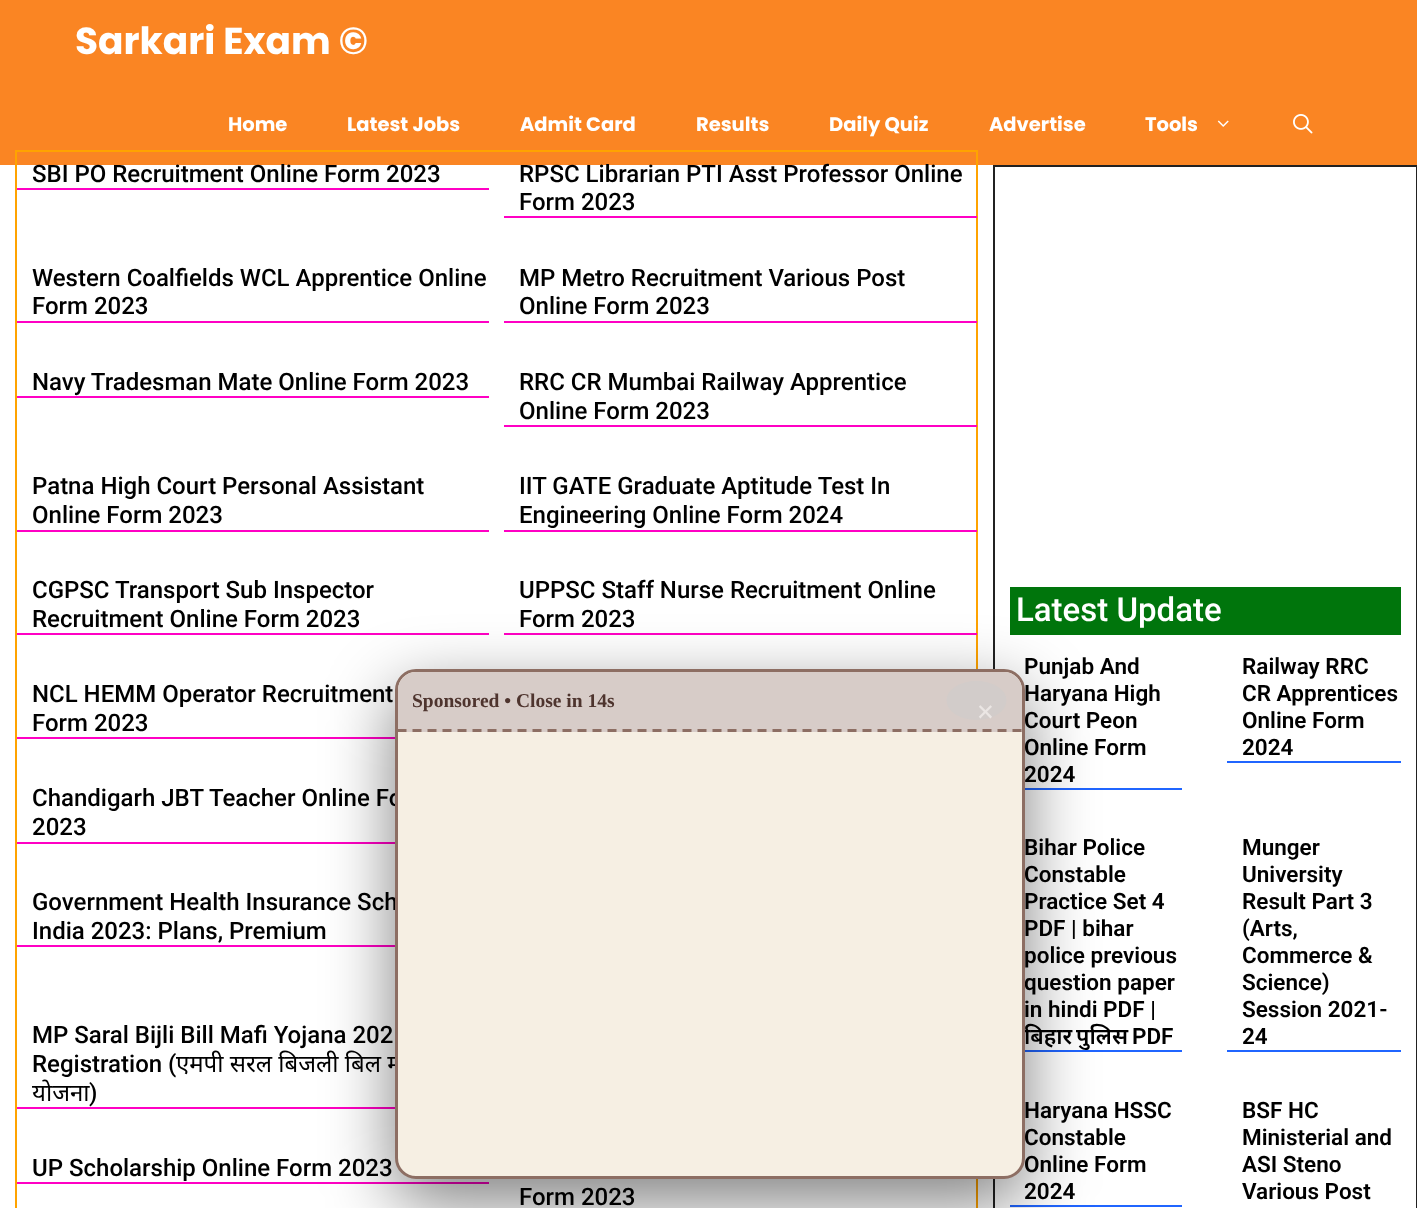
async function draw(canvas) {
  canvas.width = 1417
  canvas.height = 1208
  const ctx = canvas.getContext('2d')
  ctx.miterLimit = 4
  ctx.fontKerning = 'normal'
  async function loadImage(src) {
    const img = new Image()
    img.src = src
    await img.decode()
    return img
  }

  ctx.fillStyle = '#fff'
  ctx.fillRect(0, 0, 1417, 1208)
  ctx.fillStyle = '#fa8523'
  ctx.fillRect(0, 0, 1417, 165)
  ctx.font = 'bold 37.5px Poppins'
  ctx.fillStyle = '#fff'
  ctx.fillText('Sarkari Exam ©', 75, 54)
  ctx.font = 'bold 19.5px Poppins'
  ctx.fillText('Home', 228, 131)
  ctx.fillText('Latest Jobs', 347, 131)
  ctx.fillText('Admit Card', 520, 131)
  ctx.fillText('Results', 696, 131)
  ctx.fillText('Daily Quiz', 829, 131)
  ctx.fillText('Advertise', 989, 131)
  ctx.fillText('Tools', 1145, 131)
  ctx.drawImage(await loadImage('image0.png'), 1217, 120, 12, 7)
  ctx.drawImage(await loadImage('image1.png'), 1293, 114, 20, 20)
  ctx.strokeStyle = '#ffa300'
  ctx.lineWidth = 2
  ctx.strokeRect(16, 151, 961, 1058)
  ctx.fillStyle = '#ff00c4'
  ctx.fillRect(17, 188, 472, 2)
  ctx.font = '500 24px Roboto'
  ctx.fillStyle = '#000'
  ctx.fillText('SBI PO Recruitment Online Form 2023', 32, 182)
  ctx.fillStyle = '#ff00c4'
  ctx.fillRect(504, 216, 473, 2)
  ctx.fillStyle = '#000'
  ctx.fillText('RPSC Librarian PTI Asst Professor Online', 519, 182)
  ctx.fillText('Form 2023', 519, 210)
  ctx.fillStyle = '#ff00c4'
  ctx.fillRect(17, 321, 472, 2)
  ctx.fillStyle = '#000'
  ctx.fillText('Western Coalfields WCL Apprentice Online', 32, 286)
  ctx.fillText('Form 2023', 32, 314)
  ctx.fillStyle = '#ff00c4'
  ctx.fillRect(504, 321, 473, 2)
  ctx.fillStyle = '#000'
  ctx.fillText('MP Metro Recruitment Various Post', 519, 286)
  ctx.fillText('Online Form 2023', 519, 314)
  ctx.fillStyle = '#ff00c4'
  ctx.fillRect(17, 396, 472, 2)
  ctx.fillStyle = '#000'
  ctx.fillText('Navy Tradesman Mate Online Form 2023', 32, 390)
  ctx.fillStyle = '#ff00c4'
  ctx.fillRect(504, 425, 473, 2)
  ctx.fillStyle = '#000'
  ctx.fillText('RRC CR Mumbai Railway Apprentice', 519, 390)
  ctx.fillText('Online Form 2023', 519, 419)
  ctx.fillStyle = '#ff00c4'
  ctx.fillRect(17, 530, 472, 2)
  ctx.fillStyle = '#000'
  ctx.fillText('Patna High Court Personal Assistant', 32, 494)
  ctx.fillText('Online Form 2023', 32, 523)
  ctx.fillStyle = '#ff00c4'
  ctx.fillRect(504, 530, 473, 2)
  ctx.fillStyle = '#000'
  ctx.fillText('IIT GATE Graduate Aptitude Test In', 519, 494)
  ctx.fillText('Engineering Online Form 2024', 519, 523)
  ctx.fillStyle = '#ff00c4'
  ctx.fillRect(17, 633, 472, 2)
  ctx.fillStyle = '#000'
  ctx.fillText('CGPSC Transport Sub Inspector', 32, 598)
  ctx.fillText('Recruitment Online Form 2023', 32, 627)
  ctx.fillStyle = '#ff00c4'
  ctx.fillRect(504, 633, 473, 2)
  ctx.fillStyle = '#000'
  ctx.fillText('UPPSC Staff Nurse Recruitment Online', 519, 598)
  ctx.fillText('Form 2023', 519, 627)
  ctx.fillStyle = '#ff00c4'
  ctx.fillRect(17, 737, 378, 2)
  ctx.fillStyle = '#000'
  ctx.fillText('NCL HEMM Operator Recruitment', 32, 702)
  ctx.fillText('Form 2023', 32, 731)
  ctx.fillStyle = '#ff00c4'
  ctx.fillRect(17, 842, 378, 2)
  ctx.fillStyle = '#000'
  ctx.fillText('Chandigarh JBT Teacher Online Fo', 32, 806)
  ctx.fillText('2023', 32, 835)
  ctx.fillStyle = '#ff00c4'
  ctx.fillRect(17, 945, 378, 2)
  ctx.fillStyle = '#000'
  ctx.fillText('Government Health Insurance Sch', 32, 910)
  ctx.fillText('India 2023: Plans, Premium', 32, 939)
  ctx.fillStyle = '#ff00c4'
  ctx.fillRect(17, 1107, 378, 2)
  ctx.fillStyle = '#000'
  ctx.fillText('MP Saral Bijli Bill Mafi Yojana 202', 32, 1043)
  ctx.fillText('Registration (', 32, 1072)
  ctx.font = '24px Noto Sans'
  ctx.fillText('एमपी सरल बिजली बिल म', 176, 1072)
  ctx.fillText('योजना', 32, 1101)
  ctx.font = '500 24px Roboto'
  ctx.fillText(')', 89, 1101)
  ctx.fillStyle = '#ff00c4'
  ctx.fillRect(17, 1182, 472, 2)
  ctx.fillStyle = '#000'
  ctx.fillText('UP Scholarship Online Form 2023', 32, 1176)
  ctx.fillText('Form 2023', 519, 1205)
  ctx.strokeStyle = '#212121'
  ctx.strokeRect(994, 166, 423, 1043)
  ctx.fillStyle = '#00750c'
  ctx.fillRect(1010, 587, 391, 48)
  ctx.font = '500 33px Roboto'
  ctx.fillStyle = '#fff'
  ctx.fillText('Latest Update', 1016, 621)
  ctx.fillStyle = '#2065ff'
  ctx.fillRect(1025, 788, 157, 2)
  ctx.font = '600 22.5px Roboto'
  ctx.fillStyle = '#000'
  ctx.fillText('Punjab And', 1024, 674)
  ctx.fillText('Haryana High', 1024, 701)
  ctx.fillText('Court Peon', 1024, 728)
  ctx.fillText('Online Form', 1024, 755)
  ctx.fillText('2024', 1024, 782)
  ctx.fillStyle = '#2065ff'
  ctx.fillRect(1227, 761, 174, 2)
  ctx.fillStyle = '#000'
  ctx.fillText('Railway RRC', 1242, 674)
  ctx.fillText('CR Apprentices', 1242, 701)
  ctx.fillText('Online Form', 1242, 728)
  ctx.fillText('2024', 1242, 755)
  ctx.fillStyle = '#2065ff'
  ctx.fillRect(1025, 1050, 157, 2)
  ctx.fillStyle = '#000'
  ctx.fillText('Bihar Police', 1024, 855)
  ctx.fillText('Constable', 1024, 882)
  ctx.fillText('Practice Set 4', 1024, 909)
  ctx.fillText('PDF | bihar', 1024, 936)
  ctx.fillText('police previous', 1024, 963)
  ctx.fillText('question paper', 1024, 990)
  ctx.fillText('in hindi PDF |', 1024, 1017)
  ctx.wordSpacing = '-2px'
  ctx.font = '600 22.5px Noto Sans'
  ctx.fillText('बिहार पुलिस', 1024, 1044)
  ctx.wordSpacing = '0px'
  ctx.font = '600 22.5px Roboto'
  ctx.fillText('PDF', 1132, 1044)
  ctx.fillStyle = '#2065ff'
  ctx.fillRect(1227, 1050, 174, 2)
  ctx.fillStyle = '#000'
  ctx.fillText('Munger', 1242, 855)
  ctx.fillText('University', 1242, 882)
  ctx.fillText('Result Part 3', 1242, 909)
  ctx.fillText('(Arts,', 1242, 936)
  ctx.fillText('Commerce &', 1242, 963)
  ctx.fillText('Science)', 1242, 990)
  ctx.fillText('Session 2021-', 1242, 1017)
  ctx.fillText('24', 1242, 1044)
  ctx.fillStyle = '#2065ff'
  ctx.fillRect(1010, 1205, 172, 2)
  ctx.fillStyle = '#000'
  ctx.fillText('Haryana HSSC', 1024, 1118)
  ctx.fillText('Constable', 1024, 1145)
  ctx.fillText('Online Form', 1024, 1172)
  ctx.fillText('2024', 1024, 1199)
  ctx.fillText('BSF HC', 1242, 1118)
  ctx.fillText('Ministerial and', 1242, 1145)
  ctx.fillText('ASI Steno', 1242, 1172)
  ctx.fillText('Various Post', 1242, 1199)
  ctx.fillStyle = '#00000080'
  ctx.filter = 'blur(34px)'
  ctx.beginPath()
  ctx.roundRect(395, 692, 630, 510, 21)
  ctx.fill()
  ctx.filter = 'none'
  ctx.fillStyle = '#f6efe3'
  ctx.beginPath()
  ctx.roundRect(396.5, 670.5, 627, 507, 19.5)
  ctx.fill()
  ctx.strokeStyle = '#8d6e63'
  ctx.lineWidth = 3
  ctx.stroke()
  ctx.fillStyle = '#d7ccc8'
  ctx.beginPath()
  ctx.roundRect(398, 672, 624, 60, [18, 18, 0, 0])
  ctx.fill()
  ctx.save()
  ctx.beginPath()
  ctx.roundRect(398, 672, 624, 504, 18)
  ctx.clip()
  ctx.beginPath()
  ctx.moveTo(397.5, 730.5)
  ctx.lineTo(1021.5, 730.5)
  ctx.setLineDash([9, 6])
  ctx.stroke()
  ctx.restore()
  ctx.font = 'bold 19.5px Liberation Serif'
  ctx.fillStyle = '#4e342e'
  ctx.fillText('Sponsored • Close in 14s', 412, 707)
  ctx.fillStyle = '#d2ccca'
  ctx.beginPath()
  ctx.ellipse(976.5, 700.5, 30, 19.5, 0, 0, 2 * Math.PI)
  ctx.fill()
  ctx.font = '22.5px DejaVu Sans'
  ctx.fillStyle = '#ebe6e4'
  ctx.fillText('✕', 976, 720)
}

draw(document.querySelector('canvas'))
